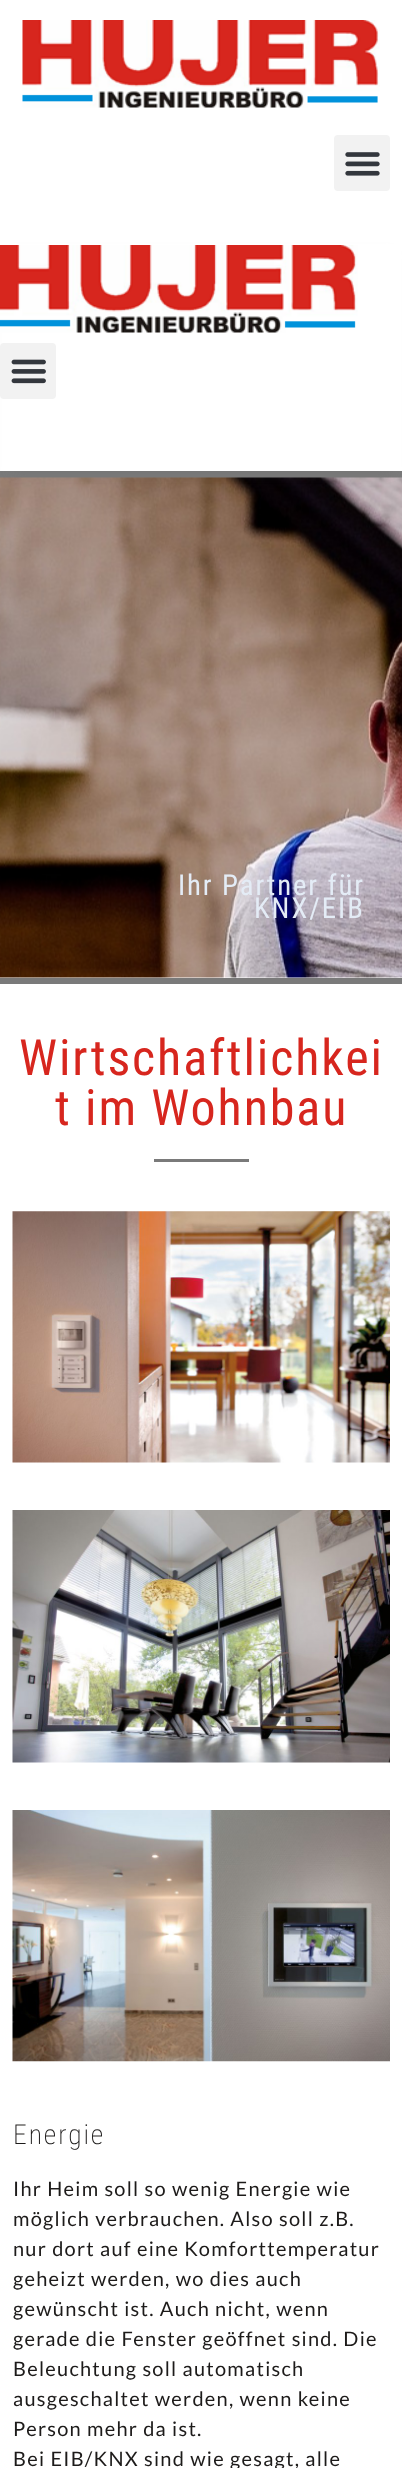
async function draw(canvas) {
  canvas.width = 402
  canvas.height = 2468
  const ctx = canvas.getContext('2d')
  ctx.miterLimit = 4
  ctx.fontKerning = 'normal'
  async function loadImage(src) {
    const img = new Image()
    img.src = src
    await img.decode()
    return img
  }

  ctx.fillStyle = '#fff'
  ctx.fillRect(0, 0, 402, 2468)
  ctx.drawImage(await loadImage('image0.png'), 22, 20, 358, 88)
  ctx.fillStyle = '#f2f2f2'
  ctx.beginPath()
  ctx.roundRect(334, 135, 56, 56, 4)
  ctx.fill()
  ctx.drawImage(await loadImage('image1.png'), 345, 152, 35, 24)
  ctx.fillStyle = '#7a7a7a'
  ctx.fillRect(0, 471, 402, 7)
  ctx.drawImage(await loadImage('image4.png'), 0, 477, 402, 501)
  ctx.fillStyle = '#6b6b6b80'
  ctx.filter = 'blur(6px)'
  ctx.beginPath()
  ctx.rect(13, 255, 377, 216)
  ctx.fill()
  ctx.filter = 'none'
  ctx.fillStyle = '#fff'
  ctx.fillRect(2, 244, 399, 227)
  ctx.drawImage(await loadImage('image2.png'), 0, 245, 358, 88)
  ctx.fillStyle = '#f2f2f2'
  ctx.beginPath()
  ctx.roundRect(0, 343, 56, 56, 4)
  ctx.fill()
  ctx.drawImage(await loadImage('image3.png'), 11, 359, 35, 25)
  ctx.fillStyle = '#7a7a7a'
  ctx.fillRect(0, 978, 402, 6)
  ctx.letterSpacing = '1.9px'
  ctx.font = '28.75px Roboto Condensed'
  ctx.fillStyle = '#e4ecf6'
  ctx.fillText('Ihr Partner für', 178, 895)
  ctx.fillText('KNX/EIB', 254, 918)
  ctx.font = '50px Roboto Condensed'
  ctx.fillStyle = '#d7261e'
  ctx.fillText('Wirtschaftlichkei', 19, 1075)
  ctx.fillText('t im Wohnbau', 55, 1125)
  ctx.fillStyle = '#7a7a7a'
  ctx.fillRect(154, 1159, 95, 3)
  ctx.drawImage(await loadImage('image5.png'), 12, 1211, 378, 252)
  ctx.drawImage(await loadImage('image6.png'), 12, 1510, 378, 253)
  ctx.drawImage(await loadImage('image7.png'), 12, 1810, 378, 252)
  ctx.font = '200 27.5px Roboto Condensed'
  ctx.fillStyle = '#1d1b1a'
  ctx.fillText('Energie', 13, 2144)
  ctx.letterSpacing = '1.25px'
  ctx.font = '20px Lato'
  ctx.fillText('Ihr Heim soll so wenig Energie wie', 13, 2196)
  ctx.fillText('möglich verbrauchen. Also soll z.B.', 13, 2226)
  ctx.fillText('nur dort auf eine Komforttemperatur', 13, 2256)
  ctx.fillText('geheizt werden, wo dies auch', 13, 2286)
  ctx.fillText('gewünscht ist. Auch nicht, wenn', 13, 2316)
  ctx.fillText('gerade die Fenster geöffnet sind. Die', 13, 2346)
  ctx.fillText('Beleuchtung soll automatisch', 13, 2376)
  ctx.fillText('ausgeschaltet werden, wenn keine', 13, 2406)
  ctx.fillText('Person mehr da ist.', 13, 2436)
  ctx.fillText('Bei EIB/KNX sind wie gesagt, alle', 13, 2466)
}

draw(document.querySelector('canvas'))
